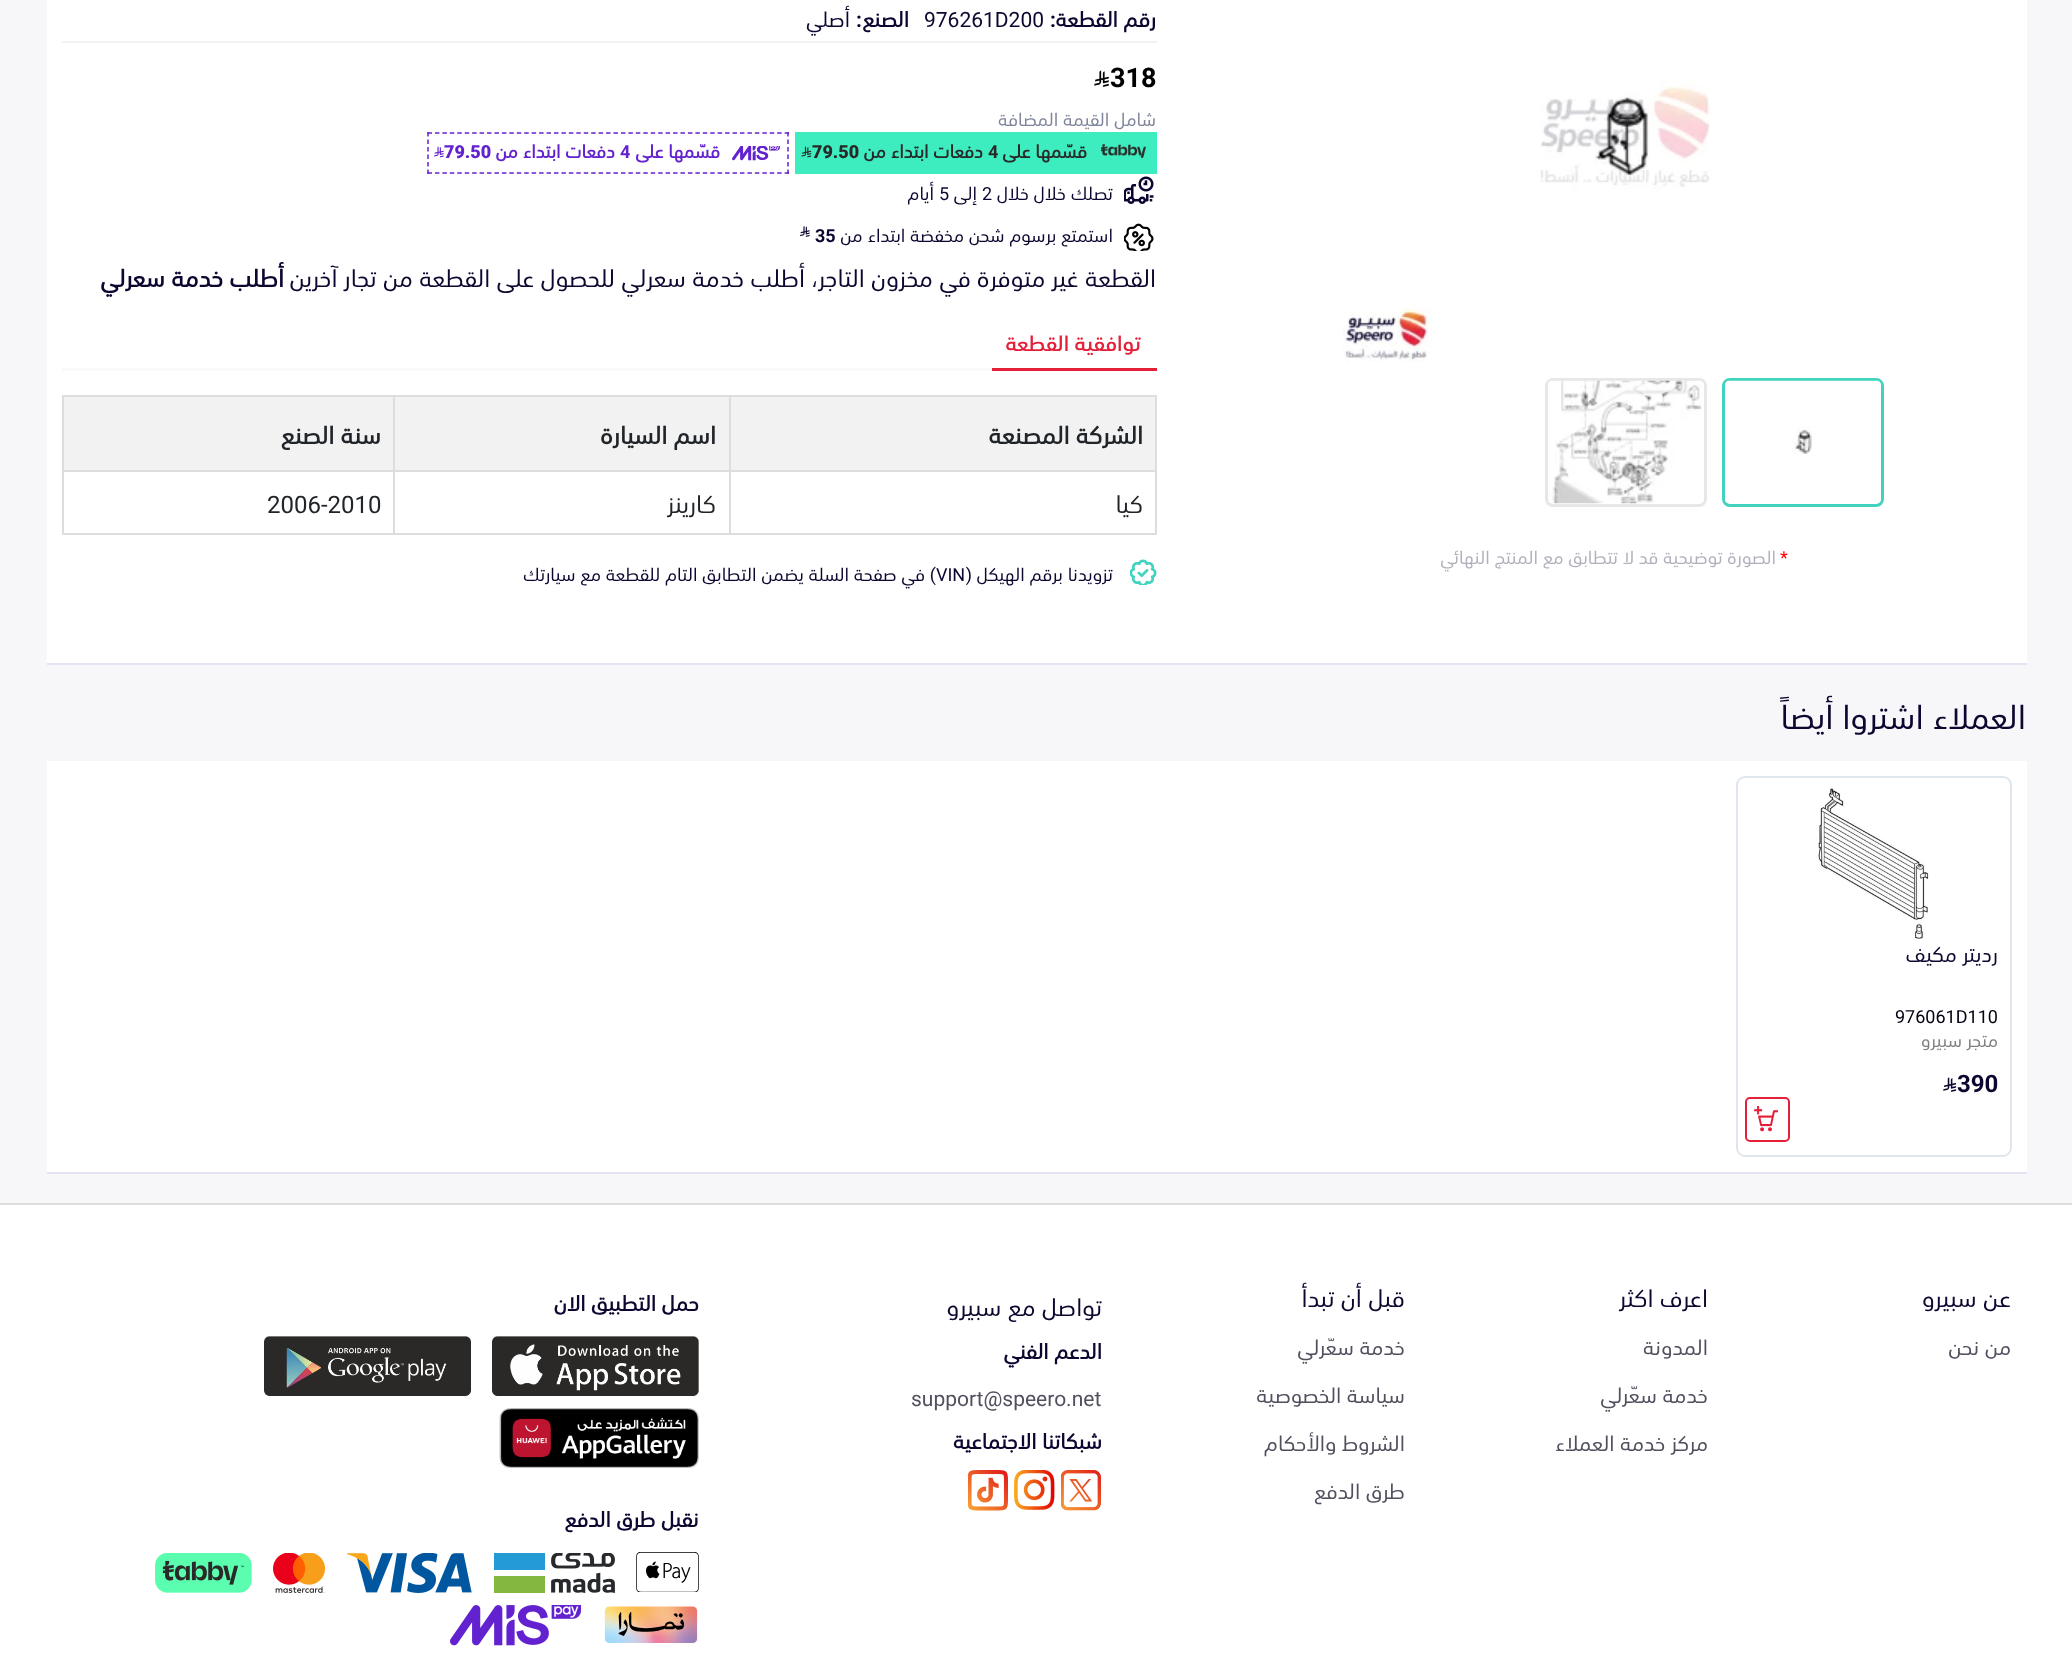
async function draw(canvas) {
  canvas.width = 2072
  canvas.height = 1667
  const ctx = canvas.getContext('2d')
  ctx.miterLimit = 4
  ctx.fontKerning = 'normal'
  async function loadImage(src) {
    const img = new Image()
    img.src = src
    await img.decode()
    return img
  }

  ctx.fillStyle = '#fff'
  ctx.fillRect(0, 0, 2072, 1667)
  ctx.fillStyle = '#f7f7fa'
  ctx.fillRect(0, 0, 2072, 1203)
  ctx.fillStyle = '#fff'
  ctx.fillRect(47, 0, 1980, 663)
  ctx.fillStyle = '#e2e5f1'
  ctx.fillRect(47, 663, 1980, 2)
  ctx.drawImage(await loadImage('image0.png'), 1337, 80, 373, 282)
  ctx.beginPath()
  ctx.roundRect(1723.5, 379.5, 159, 126, 6.5)
  ctx.strokeStyle = '#41d3bd'
  ctx.lineWidth = 3
  ctx.stroke()
  ctx.drawImage(await loadImage('image1.png'), 1725, 380, 156, 124)
  ctx.beginPath()
  ctx.roundRect(1546.5, 379.5, 159, 126, 6.5)
  ctx.strokeStyle = '#e7e7e7'
  ctx.stroke()
  ctx.drawImage(await loadImage('image2.png'), 1548, 380, 156, 124)
  ctx.font = '18px Roboto'
  ctx.fillStyle = '#f00'
  ctx.fillText('*', 1780, 564)
  ctx.direction = 'rtl'
  ctx.font = '18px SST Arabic'
  ctx.fillStyle = '#b2b0bc'
  ctx.fillText('الصورة توضيحية قد لا تتطابق مع المنتج النهائي', 1776, 564)
  ctx.fillStyle = '#f2f2f2'
  ctx.fillRect(62, 41, 1095, 2)
  ctx.font = 'bold 21px SST Arabic'
  ctx.fillStyle = '#0d0630'
  ctx.fillText('رقم القطعة', 1156, 27)
  ctx.font = 'bold 21px Roboto'
  ctx.fillText(':', 1056, 27)
  ctx.direction = 'ltr'
  ctx.font = '21px Roboto'
  ctx.fillText('976261D200', 924, 27)
  ctx.direction = 'rtl'
  ctx.font = 'bold 21px SST Arabic'
  ctx.fillText('الصنع', 909, 27)
  ctx.font = 'bold 21px Roboto'
  ctx.fillText(':', 862, 27)
  ctx.font = '21px SST Arabic'
  ctx.fillText('أصلي', 850, 27)
  ctx.direction = 'ltr'
  ctx.font = 'bold 27px Roboto'
  ctx.fillStyle = '#000'
  ctx.fillText('318', 1110, 87)
  ctx.drawImage(await loadImage('image3.png'), 1094, 70, 15, 17)
  ctx.direction = 'rtl'
  ctx.font = '18px SST Arabic'
  ctx.fillStyle = '#7e859b'
  ctx.fillText('شامل القيمة المضافة', 1156, 126)
  ctx.fillStyle = '#3eedbf'
  ctx.fillRect(795, 132, 362, 42)
  ctx.drawImage(await loadImage('image4.png'), 1101, 144, 45, 14)
  ctx.font = 'bold 18px SST Arabic'
  ctx.fillStyle = '#292929'
  ctx.fillText('قسّمها على', 1087, 158)
  ctx.direction = 'ltr'
  ctx.font = 'bold 18px Roboto'
  ctx.fillText('4', 988, 158)
  ctx.direction = 'rtl'
  ctx.font = 'bold 18px SST Arabic'
  ctx.fillText('دفعات ابتداء من', 983, 158)
  ctx.direction = 'ltr'
  ctx.font = '900 18px Roboto'
  ctx.fillText('79.50', 812, 158)
  ctx.drawImage(await loadImage('image5.png'), 801, 146, 11, 12)
  ctx.beginPath()
  ctx.moveTo(427.5, 133)
  ctx.lineTo(789, 133)
  ctx.strokeStyle = '#6322d0'
  ctx.lineWidth = 1.5
  ctx.setLineDash([4.5, 2.94])
  ctx.stroke()
  ctx.beginPath()
  ctx.moveTo(788, 132)
  ctx.lineTo(788, 174)
  ctx.setLineDash([4.5, 3])
  ctx.stroke()
  ctx.beginPath()
  ctx.moveTo(427.5, 173)
  ctx.lineTo(789, 173)
  ctx.setLineDash([4.5, 2.94])
  ctx.stroke()
  ctx.beginPath()
  ctx.moveTo(428, 132)
  ctx.lineTo(428, 174)
  ctx.setLineDash([4.5, 3])
  ctx.stroke()
  ctx.drawImage(await loadImage('image6.png'), 732, 146, 48, 15)
  ctx.direction = 'rtl'
  ctx.font = 'bold 18px SST Arabic'
  ctx.fillStyle = '#6322d0'
  ctx.fillText('قسّمها على', 720, 158)
  ctx.direction = 'ltr'
  ctx.font = 'bold 18px Roboto'
  ctx.fillText('4', 620, 158)
  ctx.direction = 'rtl'
  ctx.font = 'bold 18px SST Arabic'
  ctx.fillText('دفعات ابتداء من', 615, 158)
  ctx.direction = 'ltr'
  ctx.font = '900 18px Roboto'
  ctx.fillText('79.50', 444, 158)
  ctx.drawImage(await loadImage('image7.png'), 434, 146, 10, 12)
  ctx.drawImage(await loadImage('image8.png'), 1124, 176, 30, 28)
  ctx.direction = 'rtl'
  ctx.font = '18px SST Arabic'
  ctx.fillStyle = '#0d0630'
  ctx.fillText('تصلك خلال خلال', 1113, 200)
  ctx.direction = 'ltr'
  ctx.font = '18px Roboto'
  ctx.fillText('2', 982, 200)
  ctx.direction = 'rtl'
  ctx.font = '18px SST Arabic'
  ctx.fillText('إلى', 977, 200)
  ctx.direction = 'ltr'
  ctx.font = '18px Roboto'
  ctx.fillText('5', 939, 200)
  ctx.direction = 'rtl'
  ctx.font = '18px SST Arabic'
  ctx.fillText('أيام', 934, 200)
  ctx.drawImage(await loadImage('image9.png'), 1124, 223, 30, 28)
  ctx.fillText('استمتع برسوم شحن مخفضة ابتداء من', 1113, 242)
  ctx.direction = 'ltr'
  ctx.font = 'bold 18px Roboto'
  ctx.fillText('35', 815, 242)
  ctx.drawImage(await loadImage('image10.png'), 800, 226, 10, 11)
  ctx.direction = 'rtl'
  ctx.font = '24px SST Arabic'
  ctx.fillText('القطعة غير متوفرة في مخزون التاجر، أطلب خدمة سعرلي للحصول على القطعة من تجار آخرين', 1156, 287)
  ctx.font = 'bold 24px SST Arabic'
  ctx.fillText('أطلب خدمة سعرلي', 284, 287)
  ctx.fillStyle = '#f8f9f9'
  ctx.fillRect(62, 368, 930, 3)
  ctx.fillStyle = '#e41f38'
  ctx.fillRect(992, 368, 165, 3)
  ctx.font = '500 21px SST Arabic'
  ctx.fillText('توافقية القطعة', 1141, 351)
  ctx.fillStyle = '#f2f2f2'
  ctx.fillRect(64, 397, 1091, 73)
  ctx.fillStyle = '#ddd'
  ctx.fillRect(62, 395, 333, 2)
  ctx.fillRect(62, 470, 333, 2)
  ctx.fillRect(393, 470, 2, 64)
  ctx.fillRect(393, 470, 338, 2)
  ctx.fillRect(393, 395, 2, 76)
  ctx.fillRect(393, 395, 338, 2)
  ctx.fillRect(729, 470, 2, 64)
  ctx.fillRect(729, 470, 428, 2)
  ctx.fillRect(729, 395, 2, 76)
  ctx.fillRect(729, 395, 428, 2)
  ctx.fillRect(1155, 470, 2, 64)
  ctx.fillRect(1155, 395, 2, 76)
  ctx.font = 'bold 24px SST Arabic'
  ctx.fillStyle = '#212529'
  ctx.fillText('الشركة المصنعة', 1143, 444)
  ctx.fillText('اسم السيارة', 716, 444)
  ctx.fillStyle = '#ddd'
  ctx.fillRect(62, 533, 333, 2)
  ctx.fillRect(62, 470, 2, 64)
  ctx.fillRect(62, 395, 2, 76)
  ctx.fillStyle = '#212529'
  ctx.fillText('سنة الصنع', 381, 444)
  ctx.fillStyle = '#ddd'
  ctx.fillRect(393, 533, 338, 2)
  ctx.fillRect(729, 533, 428, 2)
  ctx.font = '24px SST Arabic'
  ctx.fillStyle = '#212529'
  ctx.fillText('كيا', 1143, 513)
  ctx.fillText('كارينز', 716, 513)
  ctx.direction = 'ltr'
  ctx.font = '24px Roboto'
  ctx.fillText('2006-2010', 267, 513)
  ctx.drawImage(await loadImage('image11.png'), 1130, 559, 27, 26)
  ctx.direction = 'rtl'
  ctx.font = '18px SST Arabic'
  ctx.fillStyle = '#0d0630'
  ctx.fillText('تزويدنا برقم الهيكل', 1113, 581)
  ctx.font = '18px Roboto'
  ctx.fillText('(', 972, 581)
  ctx.direction = 'ltr'
  ctx.fillText('VIN', 936, 581)
  ctx.direction = 'rtl'
  ctx.fillText(')', 936, 581)
  ctx.font = '18px SST Arabic'
  ctx.fillText('في صفحة السلة يضمن التطابق التام للقطعة مع سيارتك', 925, 581)
  ctx.font = '33px SST Arabic'
  ctx.fillText('العملاء اشتروا أيضاً', 2026, 729)
  ctx.fillStyle = '#fff'
  ctx.fillRect(47, 761, 1980, 411)
  ctx.fillStyle = '#e2e5f1'
  ctx.fillRect(47, 1172, 1980, 2)
  ctx.beginPath()
  ctx.roundRect(1737, 777, 274, 379, 8)
  ctx.strokeStyle = '#e0e6ed'
  ctx.lineWidth = 2
  ctx.setLineDash([])
  ctx.stroke()
  ctx.drawImage(await loadImage('image12.png'), 1818, 788, 111, 151)
  ctx.font = '21px SST Arabic'
  ctx.fillStyle = '#0d0630'
  ctx.fillText('رديتر مكيف', 1998, 962)
  ctx.direction = 'ltr'
  ctx.font = '18px Roboto'
  ctx.fillStyle = '#030012'
  ctx.fillText('976061D110', 1895, 1023)
  ctx.direction = 'rtl'
  ctx.font = '18px SST Arabic'
  ctx.fillStyle = '#808080'
  ctx.fillText('متجر سبيرو', 1998, 1047)
  ctx.direction = 'ltr'
  ctx.font = 'bold 24px Roboto'
  ctx.fillStyle = '#0d0630'
  ctx.fillText('390', 1957, 1092)
  ctx.drawImage(await loadImage('image13.png'), 1943, 1077, 14, 15)
  ctx.beginPath()
  ctx.roundRect(1746, 1098, 43, 43, 4)
  ctx.strokeStyle = '#e41f38'
  ctx.stroke()
  ctx.drawImage(await loadImage('image14.png'), 1754, 1106, 24, 26)
  ctx.fillStyle = '#ddd'
  ctx.fillRect(0, 1203, 2072, 2)
  ctx.direction = 'rtl'
  ctx.font = '24px SST Arabic'
  ctx.fillStyle = '#0d0630'
  ctx.fillText('عن سبيرو', 2011, 1307)
  ctx.font = '21px SST Arabic'
  ctx.fillStyle = '#524f5e'
  ctx.fillText('من نحن', 2011, 1355)
  ctx.font = '24px SST Arabic'
  ctx.fillStyle = '#0d0630'
  ctx.fillText('اعرف اكثر', 1708, 1307)
  ctx.font = '21px SST Arabic'
  ctx.fillStyle = '#524f5e'
  ctx.fillText('المدونة', 1708, 1355)
  ctx.fillText('خدمة سعّرلي', 1708, 1403)
  ctx.fillText('مركز خدمة العملاء', 1708, 1451)
  ctx.font = '24px SST Arabic'
  ctx.fillStyle = '#0d0630'
  ctx.fillText('قبل أن تبدأ', 1405, 1307)
  ctx.font = '21px SST Arabic'
  ctx.fillStyle = '#524f5e'
  ctx.fillText('خدمة سعّرلي', 1405, 1355)
  ctx.fillText('سياسة الخصوصية', 1405, 1403)
  ctx.fillText('الشروط والأحكام', 1405, 1451)
  ctx.fillText('طرق الدفع', 1405, 1499)
  ctx.font = '24px SST Arabic'
  ctx.fillStyle = '#0d0630'
  ctx.fillText('تواصل مع سبيرو', 1102, 1316)
  ctx.font = 'bold 21px SST Arabic'
  ctx.fillText('الدعم الفني', 1102, 1359)
  ctx.direction = 'ltr'
  ctx.font = '21px Roboto'
  ctx.fillStyle = '#524f5e'
  ctx.fillText('support@speero.net', 911, 1406)
  ctx.direction = 'rtl'
  ctx.font = 'bold 21px SST Arabic'
  ctx.fillStyle = '#0d0630'
  ctx.fillText('شبكاتنا الاجتماعية', 1102, 1449)
  ctx.drawImage(await loadImage('image15.png'), 1061, 1470, 40, 41)
  ctx.drawImage(await loadImage('image16.png'), 1014, 1470, 41, 40)
  ctx.drawImage(await loadImage('image17.png'), 968, 1470, 40, 41)
  ctx.fillText('حمل التطبيق الان', 699, 1311)
  ctx.drawImage(await loadImage('image18.png'), 492, 1336, 207, 60)
  ctx.drawImage(await loadImage('image19.png'), 264, 1336, 207, 60)
  ctx.drawImage(await loadImage('image20.png'), 499, 1408, 200, 60)
  ctx.fillText('نقبل طرق الدفع', 699, 1527)
  ctx.drawImage(await loadImage('image21.png'), 636, 1552, 63, 40)
  ctx.drawImage(await loadImage('image22.png'), 494, 1553, 121, 40)
  ctx.drawImage(await loadImage('image23.png'), 347, 1553, 125, 40)
  ctx.drawImage(await loadImage('image24.png'), 273, 1553, 53, 40)
  ctx.drawImage(await loadImage('image25.png'), 155, 1553, 97, 40)
  ctx.drawImage(await loadImage('image26.png'), 604, 1606, 94, 37)
  ctx.drawImage(await loadImage('image27.png'), 450, 1605, 131, 41)
}

draw(document.querySelector('canvas'))
